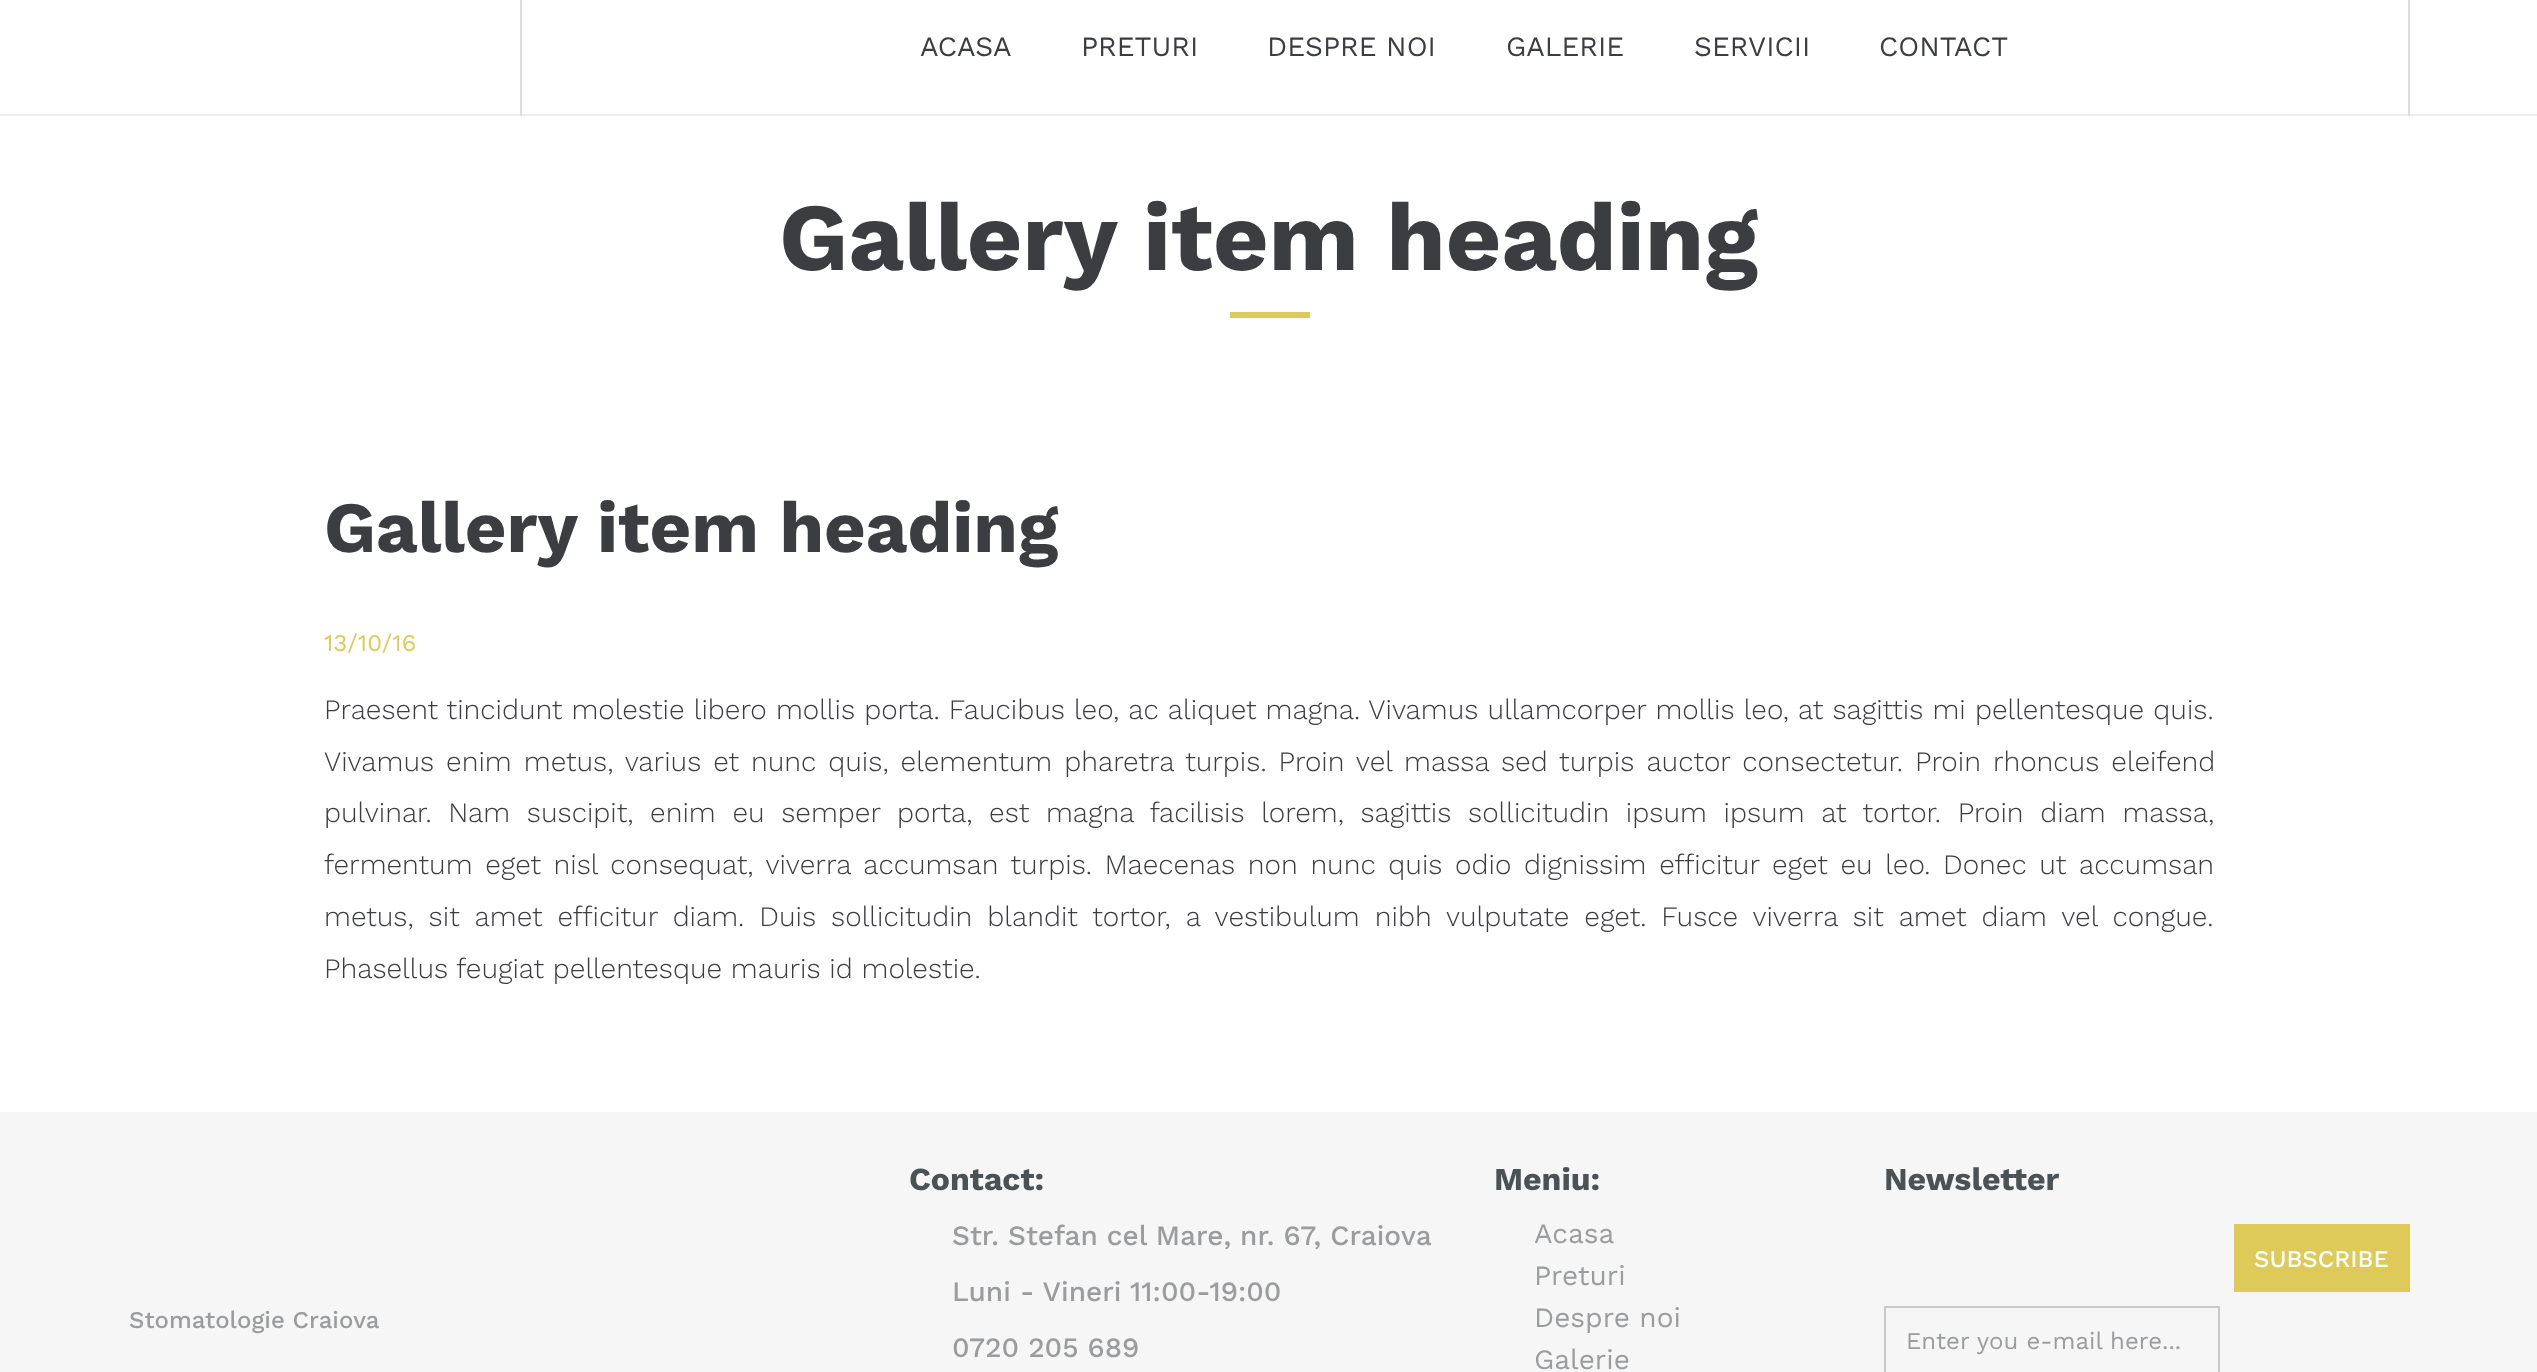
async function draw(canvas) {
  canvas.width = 2537
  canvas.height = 1372
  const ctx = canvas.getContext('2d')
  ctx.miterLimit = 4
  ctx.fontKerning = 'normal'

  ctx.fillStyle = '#fff'
  ctx.fillRect(0, 0, 2537, 1372)
  ctx.fillStyle = '#eee'
  ctx.fillRect(0, 114, 2537, 2)
  ctx.fillStyle = '#ddd'
  ctx.fillRect(2408, 0, 2, 116)
  ctx.fillRect(520, 0, 2, 116)
  ctx.font = '28px Work Sans'
  ctx.fillStyle = '#3c3d41'
  ctx.fillText('ACASA', 920, 56)
  ctx.fillText('PRETURI', 1081, 56)
  ctx.fillText('DESPRE NOI', 1267, 56)
  ctx.fillText('GALERIE', 1506, 56)
  ctx.fillText('SERVICII', 1694, 56)
  ctx.fillText('CONTACT', 1879, 56)
  ctx.font = 'bold 96px Work Sans'
  ctx.fillText('Gallery item heading', 779, 270)
  ctx.fillStyle = '#deca58'
  ctx.fillRect(1230, 312, 80, 6)
  ctx.font = 'bold 72px Work Sans'
  ctx.fillStyle = '#3c3d41'
  ctx.fillText('Gallery item heading', 324, 552)
  ctx.font = '24px Work Sans'
  ctx.fillStyle = '#deca58'
  ctx.fillText('13/10/16', 324, 651)
  ctx.wordSpacing = '0.4px'
  ctx.font = '300 28px Work Sans'
  ctx.fillStyle = '#3c3d41'
  ctx.fillText('Praesent tincidunt molestie libero mollis porta. Faucibus leo, ac aliquet magna. Vivamus ullamcorper mollis leo, at sagittis mi pellentesque quis.', 324, 719)
  ctx.wordSpacing = '3.25px'
  ctx.fillText('Vivamus enim metus, varius et nunc quis, elementum pharetra turpis. Proin vel massa sed turpis auctor consectetur. Proin rhoncus eleifend', 324, 771)
  ctx.wordSpacing = '7.9px'
  ctx.fillText('pulvinar. Nam suscipit, enim eu semper porta, est magna facilisis lorem, sagittis sollicitudin ipsum ipsum at tortor. Proin diam massa,', 324, 822)
  ctx.wordSpacing = '3.9px'
  ctx.fillText('fermentum eget nisl consequat, viverra accumsan turpis. Maecenas non nunc quis odio dignissim efficitur eget eu leo. Donec ut accumsan', 324, 874)
  ctx.wordSpacing = '6.25px'
  ctx.fillText('metus, sit amet efficitur diam. Duis sollicitudin blandit tortor, a vestibulum nibh vulputate eget. Fusce viverra sit amet diam vel congue.', 324, 926)
  ctx.wordSpacing = '0px'
  ctx.fillText('Phasellus feugiat pellentesque mauris id molestie.', 324, 978)
  ctx.fillStyle = '#f6f6f6'
  ctx.fillRect(0, 1112, 2537, 260)
  ctx.font = '500 24px Work Sans'
  ctx.fillStyle = '#9b9c9e'
  ctx.fillText('Stomatologie Craiova', 129, 1328)
  ctx.font = 'bold 32px Work Sans'
  ctx.fillStyle = '#4b5255'
  ctx.fillText('Contact:', 909, 1190)
  ctx.font = '500 28px Work Sans'
  ctx.fillStyle = '#9b9c9e'
  ctx.fillText('Str. Stefan cel Mare, nr. 67, Craiova', 952, 1245)
  ctx.fillText('Luni - Vineri 11:00-19:00', 952, 1301)
  ctx.fillText('0720 205 689', 952, 1357)
  ctx.font = 'bold 32px Work Sans'
  ctx.fillStyle = '#4b5255'
  ctx.fillText('Meniu:', 1494, 1190)
  ctx.font = '28px Work Sans'
  ctx.fillStyle = '#9b9c9e'
  ctx.fillText('Acasa', 1534, 1243)
  ctx.fillText('Preturi', 1534, 1285)
  ctx.fillText('Despre noi', 1534, 1327)
  ctx.fillText('Galerie', 1534, 1369)
  ctx.font = 'bold 32px Work Sans'
  ctx.fillStyle = '#4b5255'
  ctx.fillText('Newsletter', 1884, 1190)
  ctx.fillStyle = '#deca58'
  ctx.fillRect(2234, 1224, 176, 68)
  ctx.font = '500 24px Work Sans'
  ctx.fillStyle = '#fff'
  ctx.fillText('SUBSCRIBE', 2254, 1267)
  ctx.strokeStyle = '#c8c9ca'
  ctx.lineWidth = 2
  ctx.strokeRect(1885, 1307, 334, 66)
  ctx.font = '24px Work Sans'
  ctx.fillStyle = '#9b9c9e'
  ctx.fillText('Enter you e-mail here...', 1906, 1349)
}

draw(document.querySelector('canvas'))
